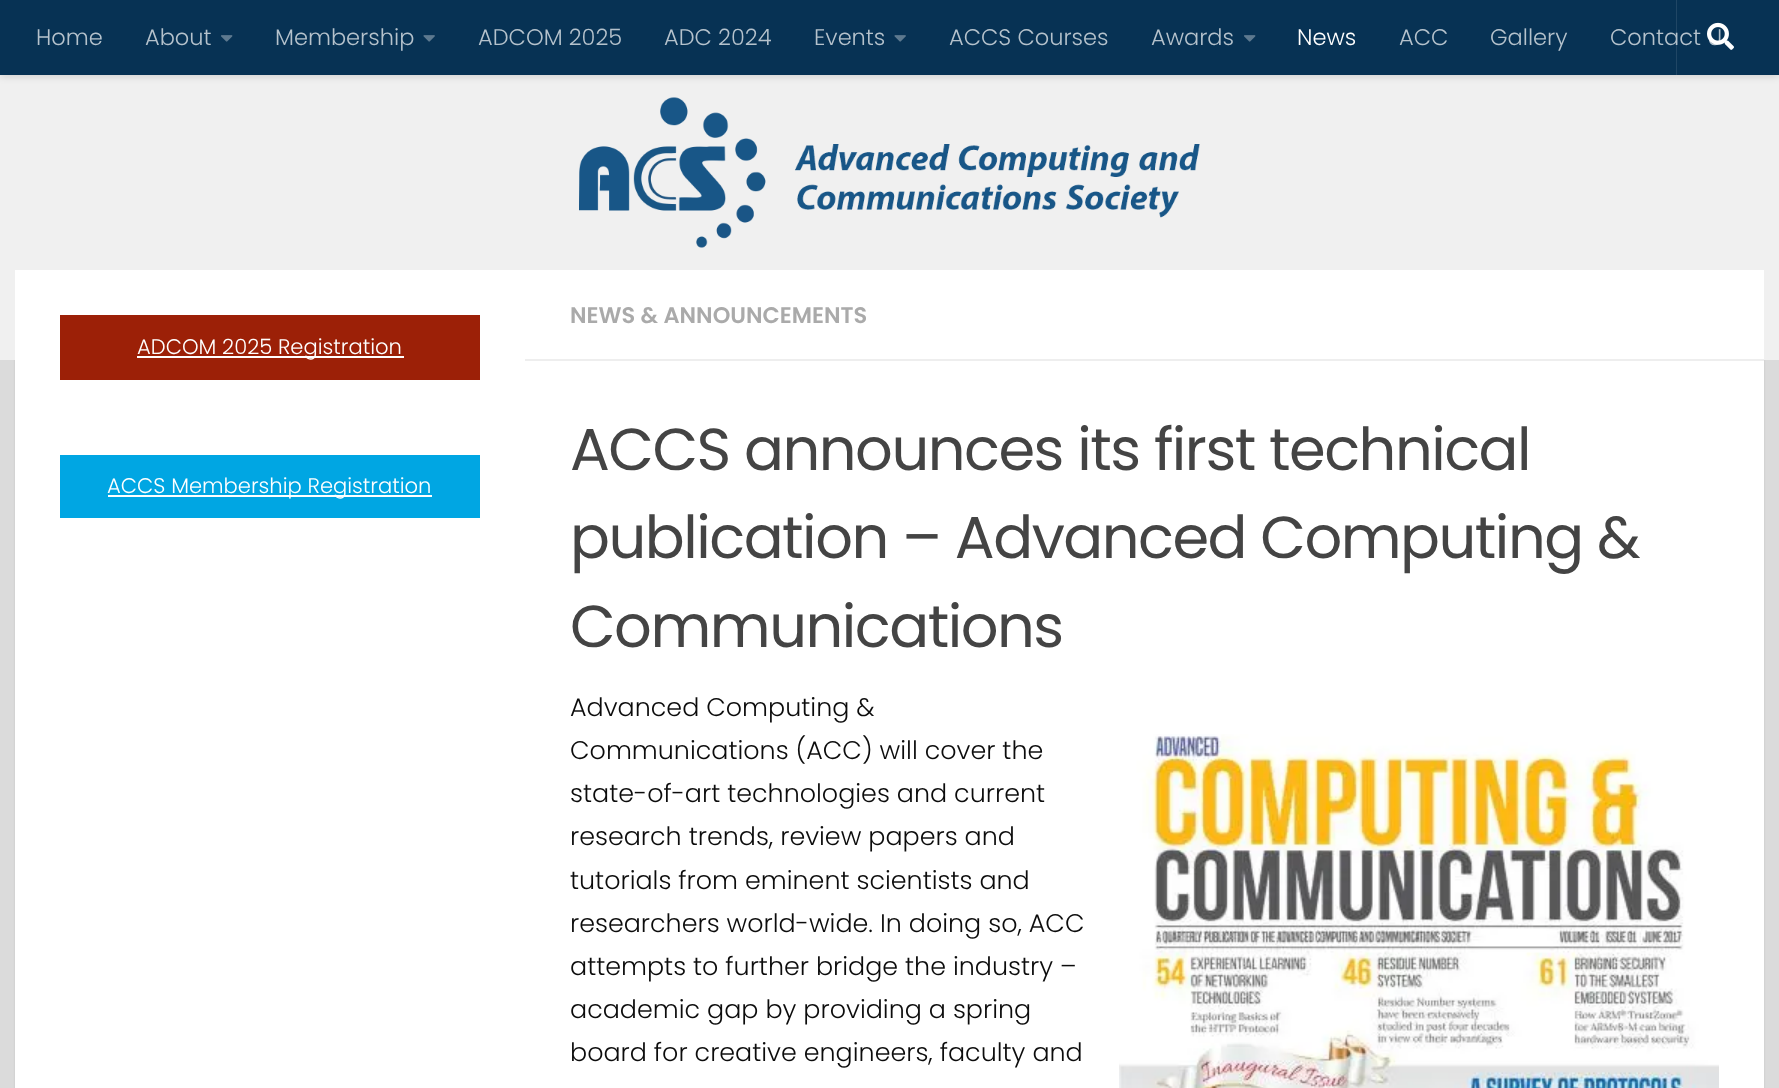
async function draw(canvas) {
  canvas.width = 1779
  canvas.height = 1088
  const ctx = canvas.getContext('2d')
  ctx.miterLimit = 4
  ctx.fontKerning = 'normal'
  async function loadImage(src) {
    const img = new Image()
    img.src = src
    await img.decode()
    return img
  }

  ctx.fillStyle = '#dbdbdb'
  ctx.fillRect(0, 0, 1779, 1088)
  ctx.fillStyle = '#0000001a'
  ctx.filter = 'blur(1px)'
  ctx.beginPath()
  ctx.rect(15, 272, 1749, 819)
  ctx.fill()
  ctx.filter = 'none'
  ctx.fillStyle = '#f0f0f0'
  ctx.fillRect(0, 77, 1779, 283)
  ctx.fillStyle = '#f2f2f2'
  ctx.fillRect(0, 75, 1779, 2)
  ctx.fillStyle = '#00000033'
  ctx.filter = 'blur(4px)'
  ctx.beginPath()
  ctx.rect(0, 0, 1779, 75)
  ctx.fill()
  ctx.filter = 'none'
  ctx.fillStyle = '#073254'
  ctx.fillRect(0, 0, 1779, 75)
  ctx.fillStyle = '#ffffff1a'
  ctx.fillRect(1676, 0, 1, 75)
  ctx.font = '300 22.5px Poppins'
  ctx.fillStyle = '#b5c2cc'
  ctx.fillText('Contact U', 1610, 45)
  ctx.drawImage(await loadImage('image0.png'), 1707, 22, 27, 28)
  ctx.fillText('Home', 36, 45)
  ctx.fillText('About', 145, 45)
  ctx.drawImage(await loadImage('image1.png'), 221, 35, 12, 7)
  ctx.fillText('Membership', 275, 45)
  ctx.drawImage(await loadImage('image2.png'), 423, 35, 12, 7)
  ctx.fillText('ADCOM 2025', 478, 45)
  ctx.fillText('ADC 2024', 664, 45)
  ctx.fillText('Events', 814, 45)
  ctx.drawImage(await loadImage('image2.png'), 894, 35, 12, 7)
  ctx.fillText('ACCS Courses', 949, 45)
  ctx.fillText('Awards', 1151, 45)
  ctx.drawImage(await loadImage('image1.png'), 1244, 35, 12, 7)
  ctx.fillStyle = '#fff'
  ctx.fillText('News', 1297, 45)
  ctx.fillStyle = '#b5c2cc'
  ctx.fillText('ACC', 1399, 45)
  ctx.fillText('Gallery', 1490, 45)
  ctx.drawImage(await loadImage('image3.png'), 579, 97, 621, 151)
  ctx.fillStyle = '#fff'
  ctx.fillRect(15, 270, 1749, 818)
  ctx.fillStyle = '#9c2007'
  ctx.fillRect(60, 315, 420, 65)
  ctx.fillStyle = '#fff'
  ctx.fillRect(137, 356, 267, 2)
  ctx.font = '300 21.1px Poppins'
  ctx.fillText('ADCOM 2025 Registration', 137, 354)
  ctx.fillStyle = '#00a6e3'
  ctx.fillRect(60, 455, 420, 63)
  ctx.fillStyle = '#fff'
  ctx.fillRect(108, 495, 324, 2)
  ctx.fillText('ACCS Membership Registration', 107, 493)
  ctx.fillStyle = '#eee'
  ctx.fillRect(525, 359, 1239, 2)
  ctx.font = '600 22.5px Poppins'
  ctx.fillStyle = '#aaa'
  ctx.fillText('NEWS & ANNOUNCEMENTS', 570, 323)
  ctx.letterSpacing = '-1.5px'
  ctx.font = '59.1px Poppins'
  ctx.fillStyle = '#444'
  ctx.fillText('ACCS announces its first technical', 570, 470)
  ctx.fillText('publication – Advanced Computing &', 570, 558)
  ctx.fillText('Communications', 570, 647)
  ctx.letterSpacing = '0px'
  ctx.font = '300 25.4px Poppins'
  ctx.fillStyle = '#0c0c0c'
  ctx.fillText('Advanced Computing &', 570, 716)
  ctx.fillText('Communications (ACC) will cover the', 570, 759)
  ctx.drawImage(await loadImage('image4.png'), 1119, 734, 600, 354)
  ctx.fillText('state-of-art technologies and current', 570, 802)
  ctx.fillText('research trends, review papers and', 570, 845)
  ctx.fillText('tutorials from eminent scientists and', 570, 889)
  ctx.fillText('researchers world-wide. In doing so, ACC', 570, 932)
  ctx.fillText('attempts to further bridge the industry –', 570, 975)
  ctx.fillText('academic gap by providing a spring', 570, 1018)
  ctx.fillText('board for creative engineers, faculty and', 570, 1061)
}

draw(document.querySelector('canvas'))
